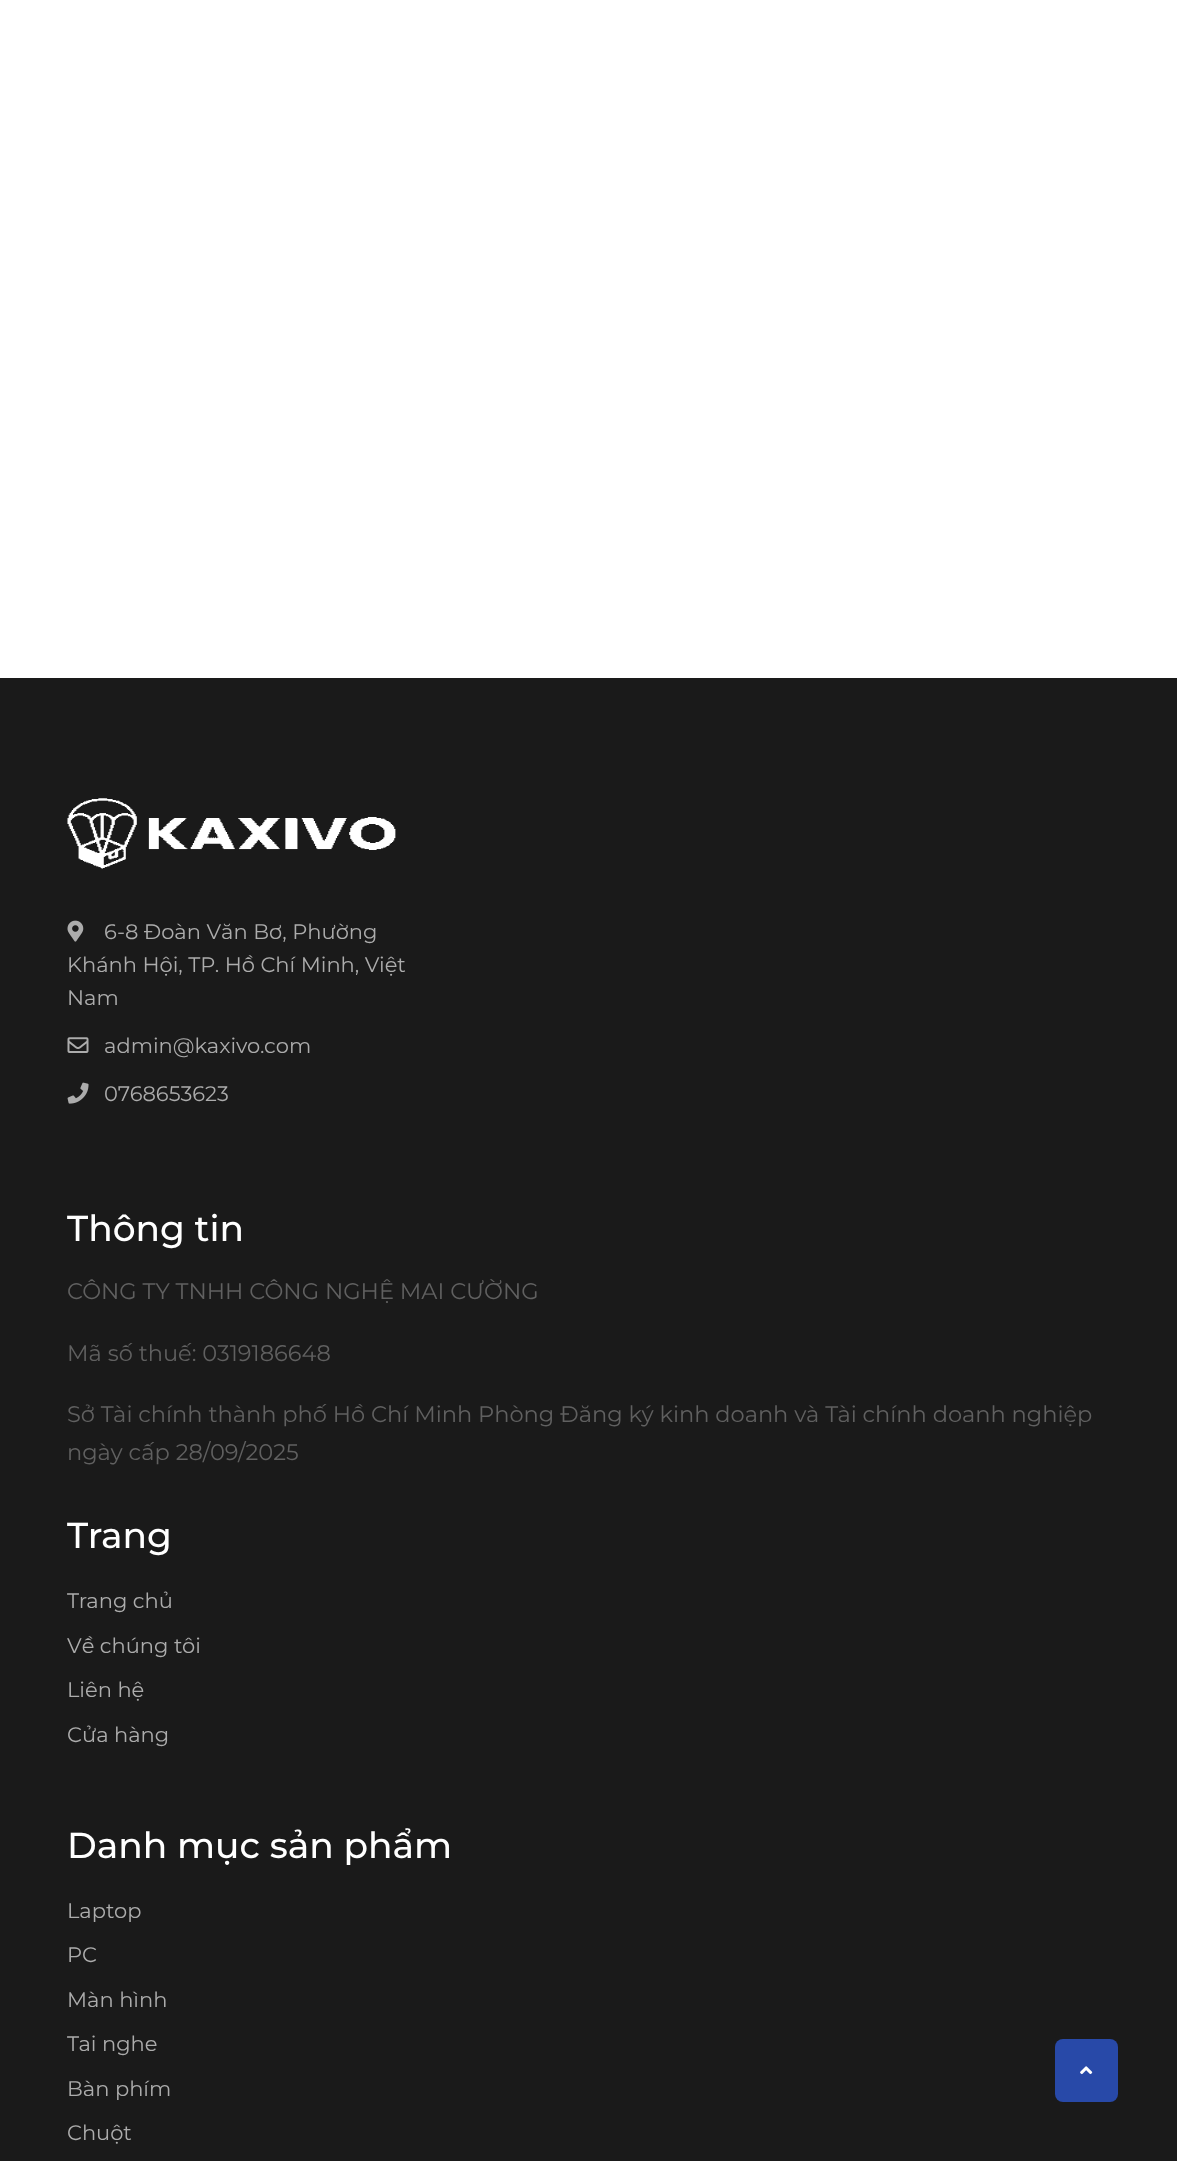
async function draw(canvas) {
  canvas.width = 1177
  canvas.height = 2161
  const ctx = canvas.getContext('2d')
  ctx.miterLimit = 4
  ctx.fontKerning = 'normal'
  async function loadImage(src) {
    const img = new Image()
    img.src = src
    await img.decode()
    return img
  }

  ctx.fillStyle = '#fff'
  ctx.fillRect(0, 0, 1177, 2161)
  ctx.fillStyle = '#1a1a1a'
  ctx.fillRect(0, 678, 1177, 1483)
  ctx.drawImage(await loadImage('image0.png'), 67, 798, 329, 71)
  ctx.drawImage(await loadImage('image1.png'), 67, 920, 17, 22)
  ctx.font = '21px Montserrat'
  ctx.fillStyle = '#acacac'
  ctx.fillText('6-8 Đoàn Văn Bơ, Phường', 104, 939)
  ctx.fillText('Khánh Hội, TP. Hồ Chí Minh, Việt', 67, 972)
  ctx.fillText('Nam', 67, 1005)
  ctx.drawImage(await loadImage('image2.png'), 67, 1037, 22, 16)
  ctx.fillText('admin@kaxivo.com', 104, 1053)
  ctx.drawImage(await loadImage('image3.png'), 67, 1082, 22, 22)
  ctx.fillText('0768653623', 104, 1101)
  ctx.font = '500 36px Montserrat'
  ctx.fillStyle = '#fff'
  ctx.fillText('Thông tin', 67, 1241)
  ctx.font = '22.5px Montserrat'
  ctx.fillStyle = '#606060'
  ctx.fillText('CÔNG TY TNHH CÔNG NGHỆ MAI CƯỜNG', 67, 1299)
  ctx.fillText('Mã số thuế: 0319186648', 67, 1361)
  ctx.fillText('Sở Tài chính thành phố Hồ Chí Minh Phòng Đăng ký kinh doanh và Tài chính doanh nghiệp', 67, 1422)
  ctx.fillText('ngày cấp 28/09/2025', 67, 1460)
  ctx.font = '500 36px Montserrat'
  ctx.fillStyle = '#fff'
  ctx.fillText('Trang', 67, 1548)
  ctx.font = '21px Montserrat'
  ctx.fillStyle = '#acacac'
  ctx.fillText('Trang chủ', 67, 1608)
  ctx.fillText('Về chúng tôi', 67, 1653)
  ctx.fillText('Liên hệ', 67, 1697)
  ctx.fillText('Cửa hàng', 67, 1742)
  ctx.font = '500 36px Montserrat'
  ctx.fillStyle = '#fff'
  ctx.fillText('Danh mục sản phẩm', 67, 1858)
  ctx.font = '21px Montserrat'
  ctx.fillStyle = '#acacac'
  ctx.fillText('Laptop', 67, 1918)
  ctx.fillText('PC', 67, 1962)
  ctx.fillText('Màn hình', 67, 2007)
  ctx.fillText('Tai nghe', 67, 2051)
  ctx.fillText('Bàn phím', 67, 2096)
  ctx.fillText('Chuột', 67, 2140)
  ctx.fillStyle = '#2849a8'
  ctx.beginPath()
  ctx.roundRect(1055, 2039, 63, 63, 8)
  ctx.fill()
  ctx.drawImage(await loadImage('image4.png'), 1080, 2066, 13, 9)
}

draw(document.querySelector('canvas'))
